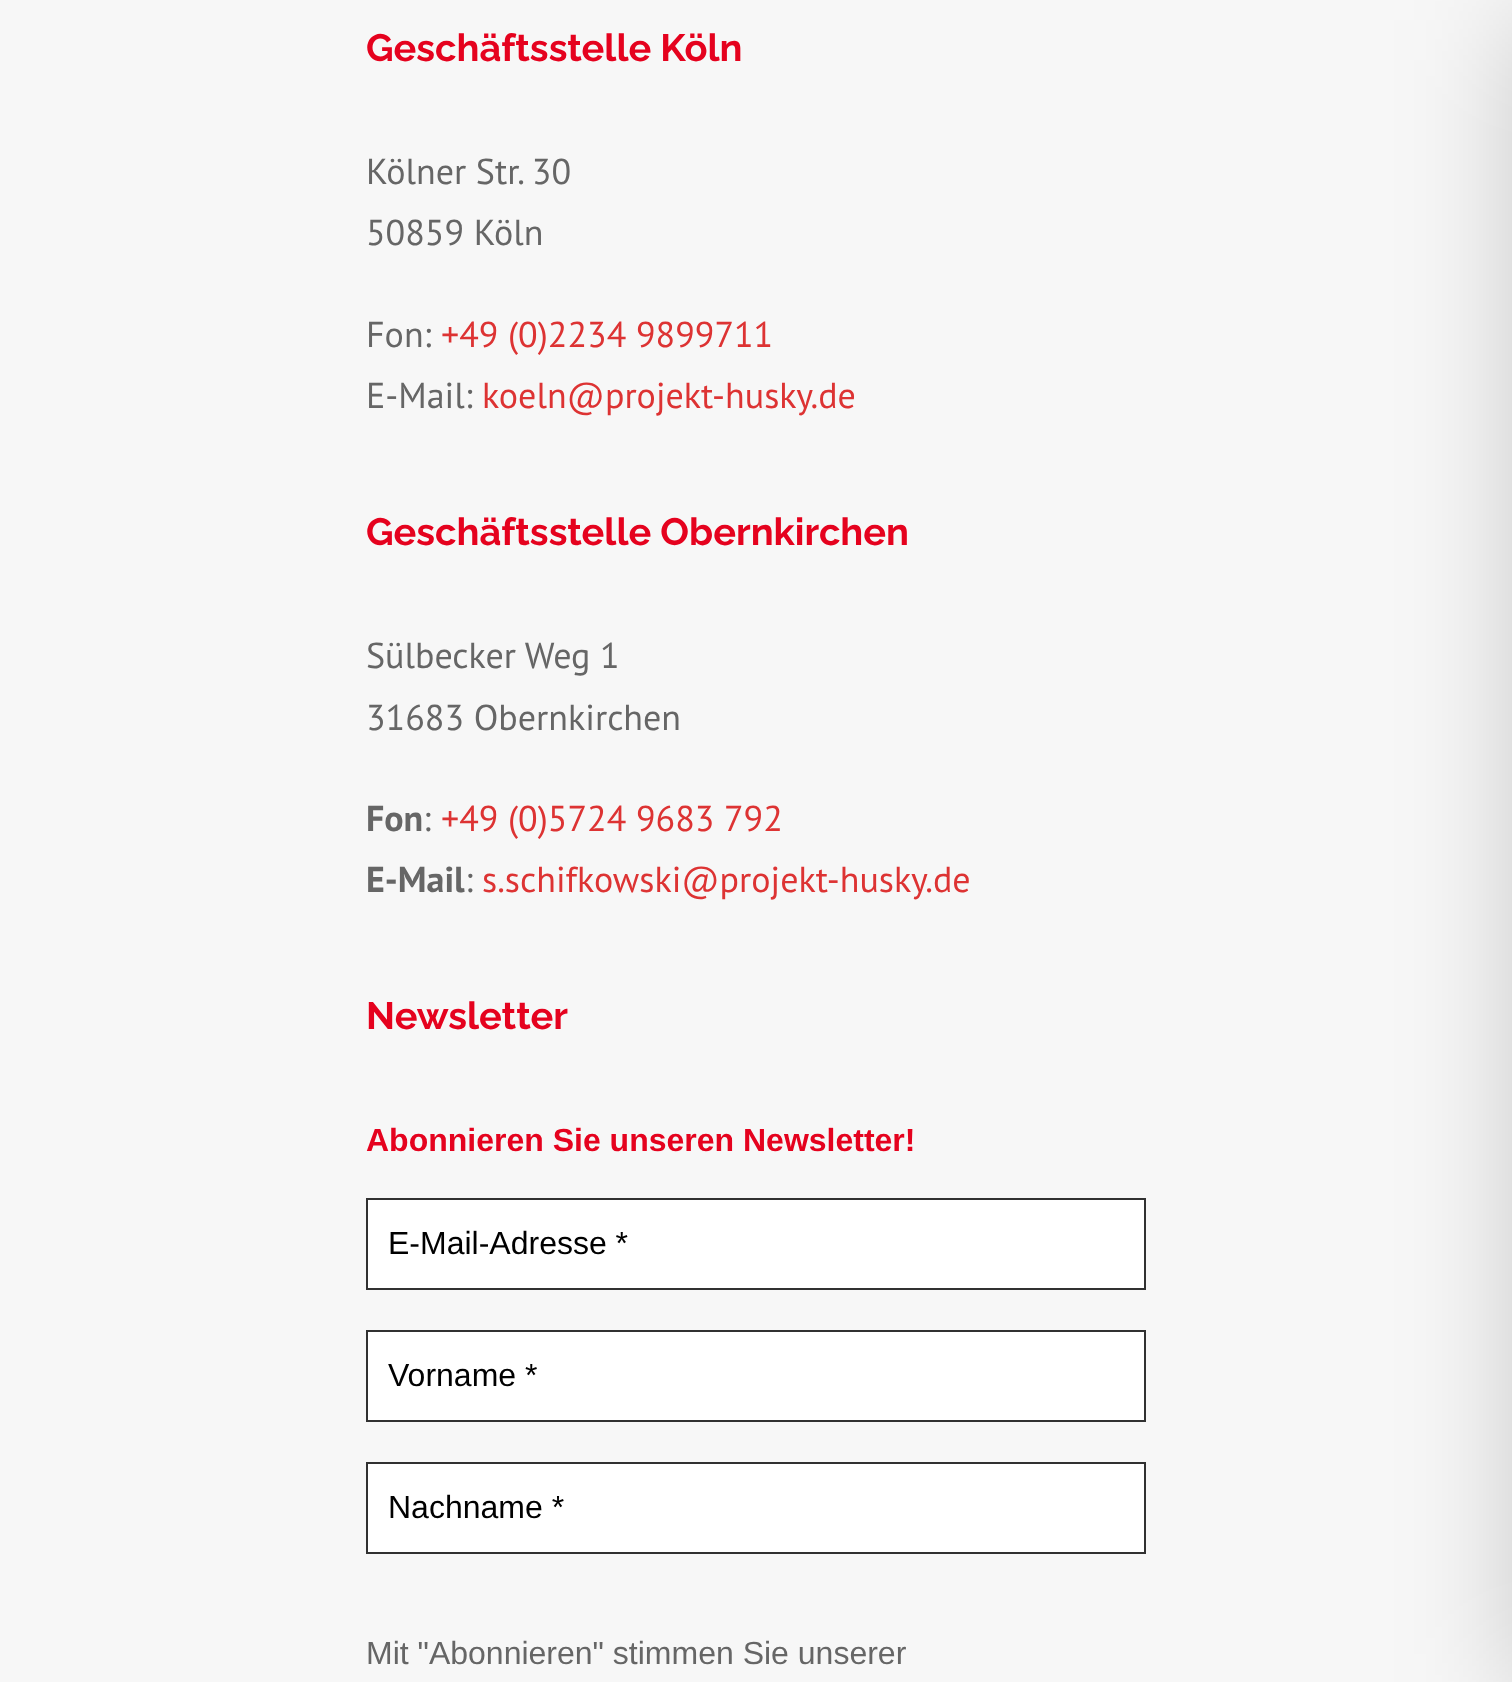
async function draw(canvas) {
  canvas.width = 1512
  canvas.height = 1682
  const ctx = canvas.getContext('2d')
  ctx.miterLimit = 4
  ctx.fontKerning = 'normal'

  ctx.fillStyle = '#f7f7f7'
  ctx.fillRect(0, 0, 1512, 1682)
  ctx.font = 'bold 38px Raleway'
  ctx.fillStyle = '#e5021e'
  ctx.fillText('Geschäftsstelle Köln', 366, 61)
  ctx.font = '36px PT Sans'
  ctx.fillStyle = '#666'
  ctx.fillText('Kölner Str. 30', 366, 184)
  ctx.fillText('50859 Köln', 366, 245)
  ctx.fillText('Fon:', 366, 347)
  ctx.fillStyle = '#d33'
  ctx.fillText('+49 (0)2234 9899711', 441, 347)
  ctx.fillStyle = '#666'
  ctx.fillText('E-Mail:', 366, 408)
  ctx.fillStyle = '#d33'
  ctx.fillText('koeln@projekt-husky.de', 482, 408)
  ctx.font = 'bold 38px Raleway'
  ctx.fillStyle = '#e5021e'
  ctx.fillText('Geschäftsstelle Obernkirchen', 366, 545)
  ctx.font = '36px PT Sans'
  ctx.fillStyle = '#666'
  ctx.fillText('Sülbecker Weg 1', 366, 668)
  ctx.fillText('31683 Obernkirchen', 366, 730)
  ctx.font = 'bold 36px PT Sans'
  ctx.fillText('Fon', 366, 831)
  ctx.font = '36px PT Sans'
  ctx.fillText(':', 423, 831)
  ctx.fillStyle = '#d33'
  ctx.fillText('+49 (0)5724 9683 792', 441, 831)
  ctx.font = 'bold 36px PT Sans'
  ctx.fillStyle = '#666'
  ctx.fillText('E-Mail', 366, 892)
  ctx.font = '36px PT Sans'
  ctx.fillText(':', 465, 892)
  ctx.fillStyle = '#d33'
  ctx.fillText('s.schifkowski@projekt-husky.de', 482, 892)
  ctx.font = 'bold 38px Raleway'
  ctx.fillStyle = '#e5021e'
  ctx.fillText('Newsletter', 366, 1029)
  ctx.font = 'bold 32px Liberation Sans'
  ctx.fillText('Abonnieren Sie unseren Newsletter!', 366, 1151)
  ctx.fillStyle = '#fff'
  ctx.beginPath()
  ctx.rect(367, 1199, 778, 90)
  ctx.fill()
  ctx.strokeStyle = '#313131'
  ctx.lineWidth = 2
  ctx.stroke()
  ctx.font = '32px Liberation Sans'
  ctx.fillStyle = '#000'
  ctx.fillText('E-Mail-Adresse *', 388, 1254)
  ctx.fillStyle = '#fff'
  ctx.beginPath()
  ctx.rect(367, 1331, 778, 90)
  ctx.fill()
  ctx.stroke()
  ctx.fillStyle = '#000'
  ctx.fillText('Vorname *', 388, 1386)
  ctx.fillStyle = '#fff'
  ctx.beginPath()
  ctx.rect(367, 1463, 778, 90)
  ctx.fill()
  ctx.stroke()
  ctx.fillStyle = '#000'
  ctx.fillText('Nachname *', 388, 1518)
  ctx.fillStyle = '#666'
  ctx.fillText('Mit "Abonnieren" stimmen Sie unserer', 366, 1664)
  ctx.fillStyle = '#00000033'
  ctx.filter = 'blur(60px)'
  ctx.beginPath()
  ctx.rect(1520, 20, 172, 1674)
  ctx.fill()
  ctx.filter = 'none'
}

draw(document.querySelector('canvas'))
